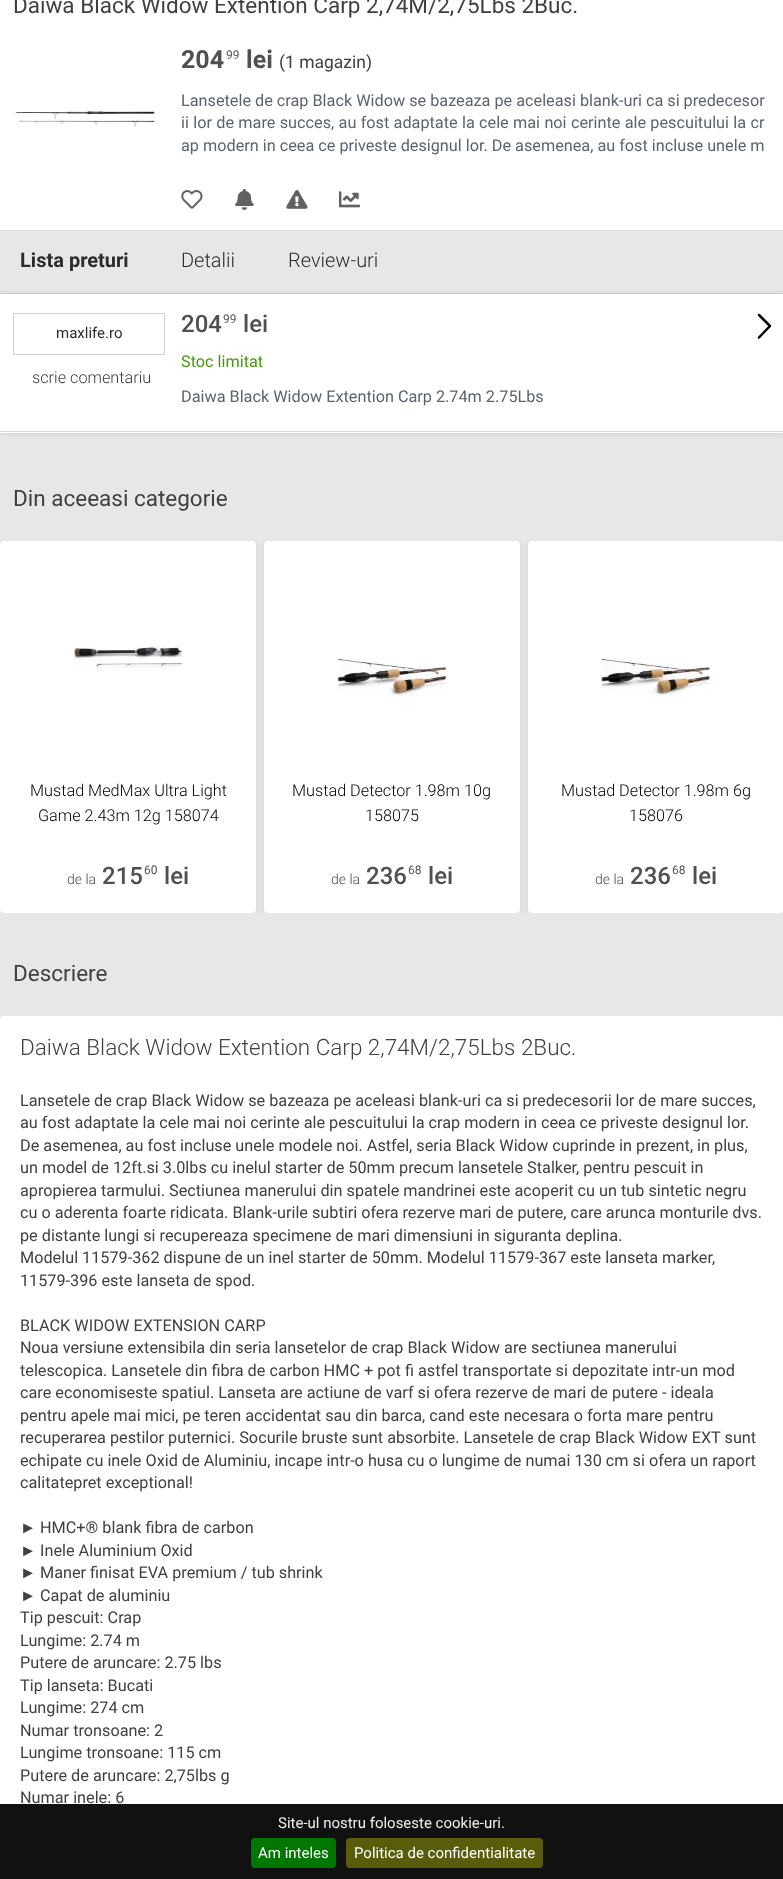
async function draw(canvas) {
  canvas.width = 783
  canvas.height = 1879
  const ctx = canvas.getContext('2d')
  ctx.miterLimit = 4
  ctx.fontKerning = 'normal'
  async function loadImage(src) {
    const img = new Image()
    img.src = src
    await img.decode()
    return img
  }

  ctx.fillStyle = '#e8e7e7'
  ctx.fillRect(0, 0, 783, 1879)
  ctx.fillStyle = '#fff'
  ctx.fillRect(0, 0, 783, 230)
  ctx.font = '22.5px Roboto'
  ctx.fillStyle = '#404040'
  ctx.fillText('Daiwa Black Widow Extention Carp 2,74M/2,75Lbs 2Buc.', 13, 13)
  ctx.drawImage(await loadImage('image0.png'), 15, 110, 140, 17)
  ctx.font = 'bold 25px Roboto'
  ctx.fillStyle = '#505050'
  ctx.fillText('204', 181, 68)
  ctx.font = '12px Roboto'
  ctx.fillText('99', 226, 59)
  ctx.font = 'bold 25px Roboto'
  ctx.fillText('lei', 246, 68)
  ctx.font = '17.5px Roboto'
  ctx.fillStyle = '#404040'
  ctx.fillText('(1 magazin)', 279, 68)
  ctx.font = '16.25px Roboto'
  ctx.fillStyle = '#5b6370'
  ctx.fillText('Lansetele de crap Black Widow se bazeaza pe aceleasi blank-uri ca si predecesor', 181, 106)
  ctx.wordSpacing = '0.3px'
  ctx.fillText('ii lor de mare succes, au fost adaptate la cele mai noi cerinte ale pescuitului la cr', 181, 128)
  ctx.wordSpacing = '0px'
  ctx.fillText('ap modern in ceea ce priveste designul lor. De asemenea, au fost incluse unele m', 181, 151)
  ctx.drawImage(await loadImage('image1.png'), 181, 190, 22, 19)
  ctx.drawImage(await loadImage('image2.png'), 235, 189, 19, 21)
  ctx.drawImage(await loadImage('image3.png'), 286, 190, 22, 19)
  ctx.drawImage(await loadImage('image4.png'), 339, 191, 21, 17)
  ctx.fillStyle = '#00000021'
  ctx.filter = 'blur(3px)'
  ctx.beginPath()
  ctx.rect(1, 296, 782, 137)
  ctx.fill()
  ctx.filter = 'none'
  ctx.fillStyle = '#fff'
  ctx.fillRect(0, 294, 783, 139)
  ctx.save()
  ctx.beginPath()
  ctx.moveTo(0, 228)
  ctx.lineTo(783, 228)
  ctx.lineTo(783, 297)
  ctx.lineTo(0, 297)
  ctx.closePath()
  ctx.moveTo(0, 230)
  ctx.lineTo(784, 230)
  ctx.lineTo(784, 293)
  ctx.lineTo(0, 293)
  ctx.closePath()
  ctx.clip('evenodd')
  ctx.fillStyle = '#0000001a'
  ctx.filter = 'blur(0.5px)'
  ctx.beginPath()
  ctx.rect(0, 231, 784, 63)
  ctx.fill()
  ctx.filter = 'none'
  ctx.restore()
  ctx.fillStyle = '#dcdcdc'
  ctx.fillRect(0, 230, 783, 1)
  ctx.fillRect(0, 291, 783, 1)
  ctx.font = 'bold 20px Roboto'
  ctx.fillStyle = '#2a2c2f'
  ctx.fillText('Lista preturi', 20, 267)
  ctx.font = '300 20px Roboto'
  ctx.fillText('Detalii', 181, 267)
  ctx.fillText('Review-uri', 288, 267)
  ctx.fillStyle = '#ddd'
  ctx.fillRect(0, 431, 783, 1)
  ctx.strokeStyle = '#d0d0d0'
  ctx.strokeRect(13.5, 313.5, 151, 41)
  ctx.font = '15px Roboto'
  ctx.fillStyle = '#2a2c2f'
  ctx.fillText('maxlife.ro', 56, 338)
  ctx.font = '300 16.25px Roboto'
  ctx.fillStyle = '#3a3a3a'
  ctx.fillText('scrie comentariu', 32, 383)
  ctx.font = '500 24px Roboto'
  ctx.fillStyle = '#505050'
  ctx.fillText('204', 181, 332)
  ctx.font = '12px Roboto'
  ctx.fillText('99', 223, 323)
  ctx.font = '500 24px Roboto'
  ctx.fillText('lei', 243, 332)
  ctx.font = '16.25px Roboto'
  ctx.fillStyle = '#479612'
  ctx.fillText('Stoc limitat', 181, 367)
  ctx.fillStyle = '#5b6370'
  ctx.fillText('Daiwa Black Widow Extention Carp 2.74m 2.75Lbs', 181, 402)
  ctx.beginPath()
  ctx.moveTo(770, 326)
  ctx.lineTo(759, 337.5)
  ctx.moveTo(759, 315)
  ctx.lineTo(770, 326)
  ctx.strokeStyle = '#000'
  ctx.lineWidth = 2.5
  ctx.lineCap = 'round'
  ctx.lineJoin = 'round'
  ctx.stroke()
  ctx.font = '22.5px Roboto'
  ctx.fillStyle = '#404040'
  ctx.fillText('Din aceeasi categorie', 13, 506)
  ctx.save()
  ctx.beginPath()
  ctx.rect(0, 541, 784, 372)
  ctx.clip()
  ctx.fillStyle = '#00000021'
  ctx.filter = 'blur(3px)'
  ctx.beginPath()
  ctx.roundRect(1, 544, 254, 369, 2.5)
  ctx.fill()
  ctx.filter = 'none'
  ctx.restore()
  ctx.fillStyle = '#fff'
  ctx.beginPath()
  ctx.roundRect(0, 541, 256, 372, 4)
  ctx.fill()
  ctx.drawImage(await loadImage('image5.png'), 73, 644, 109, 26)
  ctx.font = '300 16.25px Roboto'
  ctx.fillStyle = '#000'
  ctx.fillText('Mustad MedMax Ultra Light', 30, 796)
  ctx.fillText('Game 2.43m 12g 158074', 38, 821)
  ctx.font = '300 14px Roboto'
  ctx.fillStyle = '#414753'
  ctx.fillText('de la', 67, 884)
  ctx.font = '500 24px Roboto'
  ctx.fillStyle = '#505050'
  ctx.fillText('215', 102, 884)
  ctx.font = '12px Roboto'
  ctx.fillText('60', 144, 874)
  ctx.font = '500 24px Roboto'
  ctx.fillText('lei', 164, 884)
  ctx.save()
  ctx.beginPath()
  ctx.rect(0, 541, 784, 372)
  ctx.clip()
  ctx.fillStyle = '#00000021'
  ctx.filter = 'blur(3px)'
  ctx.beginPath()
  ctx.roundRect(265, 544, 254, 369, 2.5)
  ctx.fill()
  ctx.filter = 'none'
  ctx.restore()
  ctx.fillStyle = '#fff'
  ctx.beginPath()
  ctx.roundRect(264, 541, 256, 372, 4)
  ctx.fill()
  ctx.drawImage(await loadImage('image6.png'), 337, 657, 109, 39)
  ctx.font = '300 16.25px Roboto'
  ctx.fillStyle = '#000'
  ctx.fillText('Mustad Detector 1.98m 10g', 292, 796)
  ctx.fillText('158075', 365, 821)
  ctx.font = '300 14px Roboto'
  ctx.fillStyle = '#414753'
  ctx.fillText('de la', 331, 884)
  ctx.font = '500 24px Roboto'
  ctx.fillStyle = '#505050'
  ctx.fillText('236', 366, 884)
  ctx.font = '12px Roboto'
  ctx.fillText('68', 408, 874)
  ctx.font = '500 24px Roboto'
  ctx.fillText('lei', 428, 884)
  ctx.save()
  ctx.beginPath()
  ctx.rect(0, 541, 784, 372)
  ctx.clip()
  ctx.fillStyle = '#00000021'
  ctx.filter = 'blur(3px)'
  ctx.beginPath()
  ctx.roundRect(529, 544, 254, 369, 2.5)
  ctx.fill()
  ctx.filter = 'none'
  ctx.restore()
  ctx.fillStyle = '#fff'
  ctx.beginPath()
  ctx.roundRect(528, 541, 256, 372, 4)
  ctx.fill()
  ctx.drawImage(await loadImage('image7.png'), 600, 657, 110, 39)
  ctx.font = '300 16.25px Roboto'
  ctx.fillStyle = '#000'
  ctx.fillText('Mustad Detector 1.98m 6g', 561, 796)
  ctx.fillText('158076', 629, 821)
  ctx.font = '300 14px Roboto'
  ctx.fillStyle = '#414753'
  ctx.fillText('de la', 595, 884)
  ctx.font = '500 24px Roboto'
  ctx.fillStyle = '#505050'
  ctx.fillText('236', 630, 884)
  ctx.font = '12px Roboto'
  ctx.fillText('68', 672, 874)
  ctx.font = '500 24px Roboto'
  ctx.fillText('lei', 692, 884)
  ctx.font = '22.5px Roboto'
  ctx.fillStyle = '#404040'
  ctx.fillText('Descriere', 13, 981)
  ctx.fillStyle = '#fff'
  ctx.beginPath()
  ctx.roundRect(0, 1016, 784, 837, 4)
  ctx.fill()
  ctx.font = '300 22.5px Roboto'
  ctx.fillStyle = '#404040'
  ctx.fillText('Daiwa Black Widow Extention Carp 2,74M/2,75Lbs 2Buc.', 20, 1055)
  ctx.font = '16.25px Roboto'
  ctx.fillText('Lansetele de crap Black Widow se bazeaza pe aceleasi blank-uri ca si predecesorii lor de mare succes,', 20, 1106)
  ctx.fillText('au fost adaptate la cele mai noi cerinte ale pescuitului la crap modern in ceea ce priveste designul lor.', 20, 1128)
  ctx.fillText('De asemenea, au fost incluse unele modele noi. Astfel, seria Black Widow cuprinde in prezent, in plus,', 20, 1151)
  ctx.fillText('un model de 12ft.si 3.0lbs cu inelul starter de 50mm precum lansetele Stalker, pentru pescuit in', 20, 1173)
  ctx.fillText('apropierea tarmului. Sectiunea manerului din spatele mandrinei este acoperit cu un tub sintetic negru', 20, 1196)
  ctx.fillText('cu o aderenta foarte ridicata. Blank-urile subtiri ofera rezerve mari de putere, care arunca monturile dvs.', 20, 1218)
  ctx.fillText('pe distante lungi si recupereaza specimene de mari dimensiuni in siguranta deplina.', 20, 1241)
  ctx.fillText('Modelul 11579-362 dispune de un inel starter de 50mm. Modelul 11579-367 este lanseta marker,', 20, 1263)
  ctx.fillText('11579-396 este lanseta de spod.', 20, 1286)
  ctx.fillText('BLACK WIDOW EXTENSION CARP', 20, 1331)
  ctx.fillText('Noua versiune extensibila din seria lansetelor de crap Black Widow are sectiunea manerului', 20, 1353)
  ctx.fillText('telescopica. Lansetele din fibra de carbon HMC + pot fi astfel transportate si depozitate intr-un mod', 20, 1376)
  ctx.fillText('care economiseste spatiul. Lanseta are actiune de varf si ofera rezerve de mari de putere - ideala', 20, 1398)
  ctx.fillText('pentru apele mai mici, pe teren accidentat sau din barca, cand este necesara o forta mare pentru', 20, 1421)
  ctx.fillText('recuperarea pestilor puternici. Socurile bruste sunt absorbite. Lansetele de crap Black Widow EXT sunt', 20, 1443)
  ctx.fillText('echipate cu inele Oxid de Aluminiu, incape intr-o husa cu o lungime de numai 130 cm si ofera un raport', 20, 1466)
  ctx.fillText('calitatepret exceptional!', 20, 1488)
  ctx.font = '16.25px Liberation Sans'
  ctx.fillText('►', 20, 1533)
  ctx.font = '16.25px Roboto'
  ctx.fillText('HMC+® blank fibra de carbon', 40, 1533)
  ctx.font = '16.25px Liberation Sans'
  ctx.fillText('►', 20, 1556)
  ctx.font = '16.25px Roboto'
  ctx.fillText('Inele Aluminium Oxid', 40, 1556)
  ctx.font = '16.25px Liberation Sans'
  ctx.fillText('►', 20, 1578)
  ctx.font = '16.25px Roboto'
  ctx.fillText('Maner finisat EVA premium / tub shrink', 40, 1578)
  ctx.font = '16.25px Liberation Sans'
  ctx.fillText('►', 20, 1601)
  ctx.font = '16.25px Roboto'
  ctx.fillText('Capat de aluminiu', 40, 1601)
  ctx.fillText('Tip pescuit: Crap', 20, 1623)
  ctx.fillText('Lungime: 2.74 m', 20, 1646)
  ctx.fillText('Putere de aruncare: 2.75 lbs', 20, 1668)
  ctx.fillText('Tip lanseta: Bucati', 20, 1691)
  ctx.fillText('Lungime: 274 cm', 20, 1713)
  ctx.fillText('Numar tronsoane: 2', 20, 1736)
  ctx.fillText('Lungime tronsoane: 115 cm', 20, 1758)
  ctx.fillText('Putere de aruncare: 2,75lbs g', 20, 1781)
  ctx.fillText('Numar inele: 6', 20, 1803)
  ctx.fillStyle = '#111'
  ctx.fillRect(0, 1804, 783, 75)
  ctx.font = '15px Roboto'
  ctx.fillStyle = '#eee'
  ctx.fillText('Site-ul nostru foloseste cookie-uri.', 278, 1828)
  ctx.fillStyle = '#070'
  ctx.beginPath()
  ctx.roundRect(251, 1838, 85, 30, 4)
  ctx.fill()
  ctx.fillStyle = '#fff'
  ctx.fillText('Am inteles', 258, 1858)
  ctx.fillStyle = '#595c0a'
  ctx.beginPath()
  ctx.roundRect(346, 1838, 197, 30, 4)
  ctx.fill()
  ctx.fillStyle = '#fff'
  ctx.fillText('Politica de confidentialitate', 354, 1858)
}

draw(document.querySelector('canvas'))
